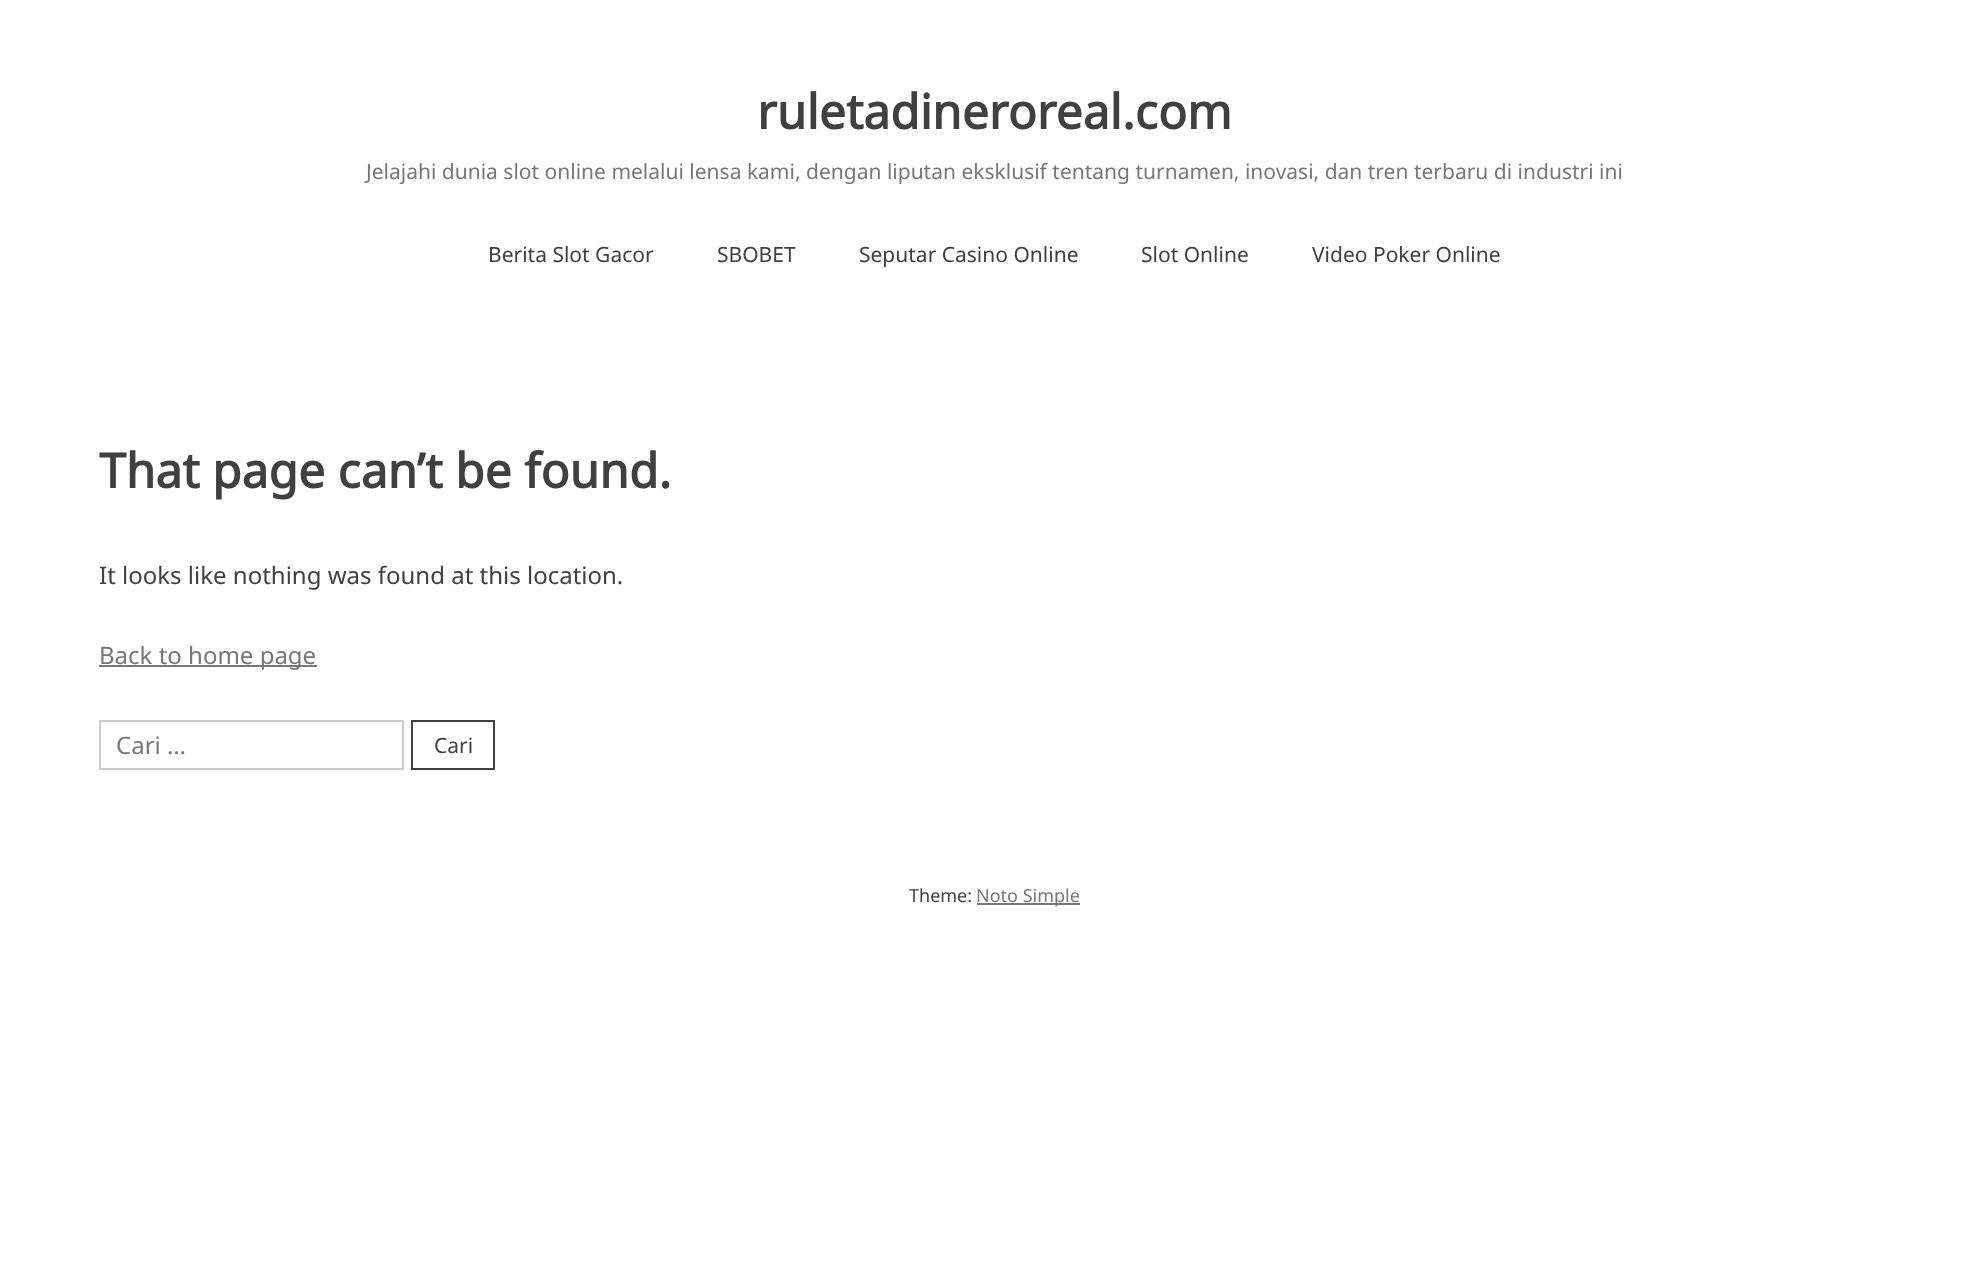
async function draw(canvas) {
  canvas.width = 1988
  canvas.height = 1266
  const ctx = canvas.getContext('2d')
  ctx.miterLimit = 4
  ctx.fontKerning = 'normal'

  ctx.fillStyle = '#fff'
  ctx.fillRect(0, 0, 1988, 1266)
  ctx.font = 'bold 48px Noto Sans'
  ctx.fillStyle = '#404040'
  ctx.fillText('ruletadineroreal.com', 757, 129)
  ctx.font = '21px Noto Sans'
  ctx.fillStyle = '#777'
  ctx.fillText('Jelajahi dunia slot online melalui lensa kami, dengan liputan eksklusif tentang turnamen, inovasi, dan tren terbaru di industri ini', 366, 179)
  ctx.fillStyle = '#404040'
  ctx.fillText('Berita Slot Gacor', 488, 262)
  ctx.fillText('SBOBET', 717, 262)
  ctx.fillText('Seputar Casino Online', 859, 262)
  ctx.fillText('Slot Online', 1141, 262)
  ctx.fillText('Video Poker Online', 1312, 262)
  ctx.font = 'bold 48px Noto Sans'
  ctx.fillText('That page can’t be found.', 99, 488)
  ctx.font = '24px Noto Sans'
  ctx.fillText('It looks like nothing was found at this location.', 99, 584)
  ctx.fillStyle = '#777'
  ctx.fillRect(99, 665, 218, 2)
  ctx.fillText('Back to home page', 99, 664)
  ctx.strokeStyle = '#ccc'
  ctx.lineWidth = 2
  ctx.strokeRect(100, 721, 303, 48)
  ctx.fillText('Cari …', 116, 754)
  ctx.strokeStyle = '#404040'
  ctx.strokeRect(412, 721, 82, 48)
  ctx.font = '21px Noto Sans'
  ctx.fillStyle = '#404040'
  ctx.fillText('Cari', 434, 753)
  ctx.font = '18px Noto Sans'
  ctx.fillText('Theme:', 909, 902)
  ctx.fillStyle = '#777'
  ctx.fillRect(977, 903, 103, 2)
  ctx.fillText('Noto Simple', 976, 902)
}

draw(document.querySelector('canvas'))
